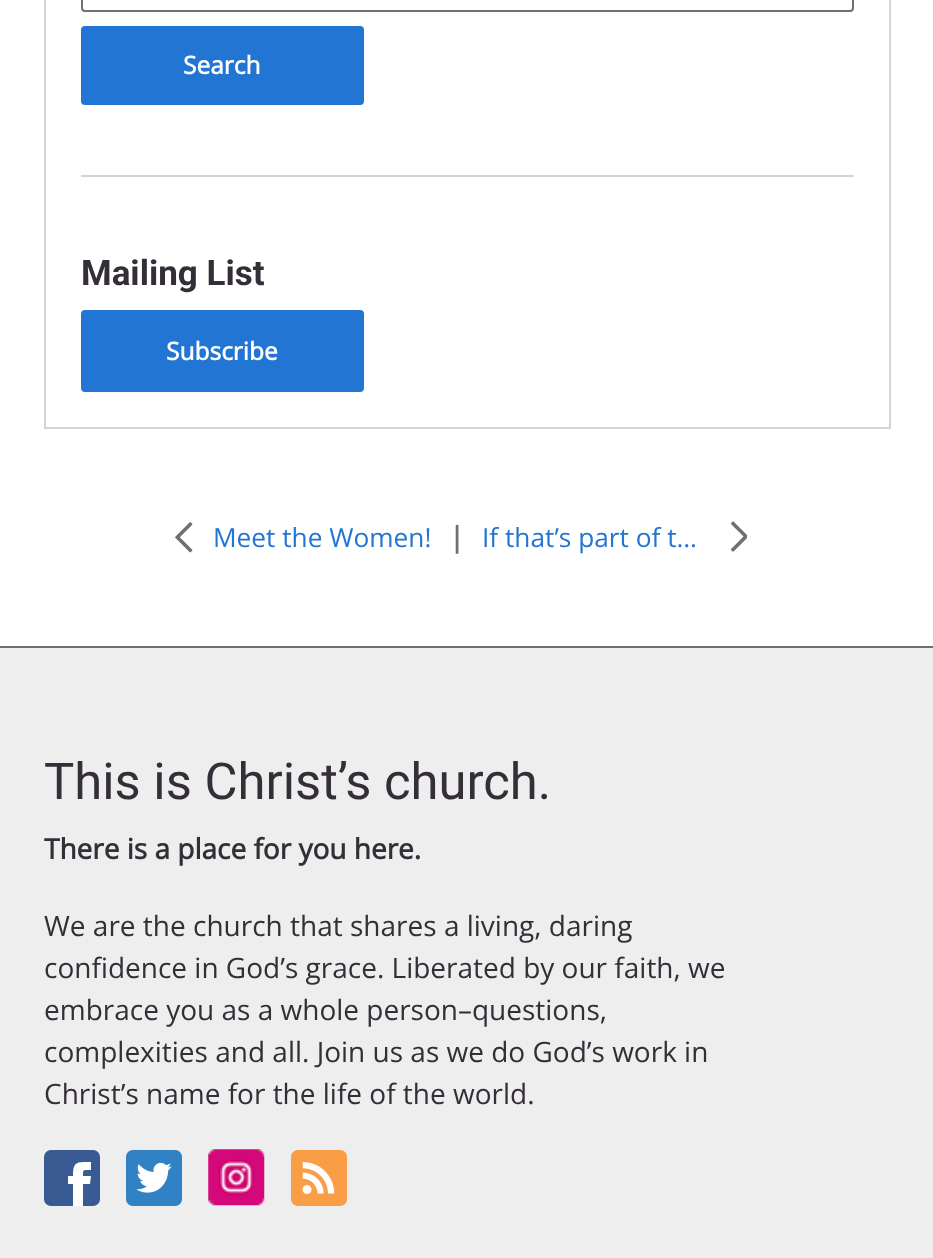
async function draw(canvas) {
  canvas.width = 933
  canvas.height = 1258
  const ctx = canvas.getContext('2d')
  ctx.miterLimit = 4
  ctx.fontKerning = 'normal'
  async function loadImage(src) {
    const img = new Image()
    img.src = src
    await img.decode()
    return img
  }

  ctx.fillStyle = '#fff'
  ctx.fillRect(0, 0, 933, 1258)
  ctx.strokeStyle = '#d6d3d1'
  ctx.lineWidth = 2
  ctx.strokeRect(45, -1, 845, 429)
  ctx.fillStyle = '#d6d3d1'
  ctx.fillRect(81, 175, 773, 2)
  ctx.beginPath()
  ctx.roundRect(82, -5, 771, 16, 3)
  ctx.strokeStyle = '#707070'
  ctx.stroke()
  ctx.fillStyle = '#2275d3'
  ctx.beginPath()
  ctx.roundRect(81, 26, 283, 79, 4)
  ctx.fill()
  ctx.font = 'bold 24.5px Open Sans'
  ctx.fillStyle = '#fff'
  ctx.fillText('Search', 183, 74)
  ctx.font = 'bold 35px Roboto'
  ctx.fillStyle = '#342e37'
  ctx.fillText('Mailing List', 81, 285)
  ctx.fillStyle = '#2275d3'
  ctx.beginPath()
  ctx.roundRect(81, 310, 283, 82, 4)
  ctx.fill()
  ctx.font = 'bold 24.5px Open Sans'
  ctx.fillStyle = '#fff'
  ctx.fillText('Subscribe', 166, 360)
  ctx.drawImage(await loadImage('image0.png'), 175, 522, 18, 31)
  ctx.font = '26.25px Open Sans'
  ctx.fillStyle = '#2275d3'
  ctx.fillText('Meet the Women!', 213, 547)
  ctx.font = 'bold 28px Open Sans'
  ctx.fillStyle = '#707070'
  ctx.fillText('|', 449, 547)
  ctx.font = '26.25px Open Sans'
  ctx.fillStyle = '#2275d3'
  ctx.fillText('If that’s part of t…', 482, 547)
  ctx.drawImage(await loadImage('image1.png'), 730, 521, 17, 31)
  ctx.fillStyle = '#eee'
  ctx.fillRect(0, 648, 933, 610)
  ctx.fillStyle = '#707070'
  ctx.fillRect(0, 646, 933, 2)
  ctx.font = '50.75px Roboto'
  ctx.fillStyle = '#342e37'
  ctx.fillText('This is Christ’s church.', 44, 799)
  ctx.font = 'bold 28px Open Sans'
  ctx.fillText('There is a place for you here.', 44, 859)
  ctx.font = '28px Open Sans'
  ctx.fillText('We are the church that shares a living, daring', 44, 936)
  ctx.fillText('confidence in God’s grace. Liberated by our faith, we', 44, 978)
  ctx.fillText('embrace you as a whole person–questions,', 44, 1020)
  ctx.fillText('complexities and all. Join us as we do God’s work in', 44, 1062)
  ctx.fillText('Christ’s name for the life of the world.', 44, 1104)
  ctx.fillStyle = '#395a93'
  ctx.beginPath()
  ctx.roundRect(44, 1150, 56, 56, 7)
  ctx.fill()
  ctx.fillStyle = '#fff'
  ctx.beginPath()
  ctx.moveTo(83, 1206)
  ctx.lineTo(83, 1184)
  ctx.lineTo(90, 1184)
  ctx.lineTo(91, 1176)
  ctx.lineTo(83, 1176)
  ctx.bezierCurveTo(83, 1169, 83, 1170, 91, 1170)
  ctx.lineTo(91, 1162)
  ctx.bezierCurveTo(77, 1162, 73, 1161, 73, 1176)
  ctx.lineTo(68, 1176)
  ctx.lineTo(68, 1184)
  ctx.lineTo(73, 1184)
  ctx.lineTo(73, 1206)
  ctx.closePath()
  ctx.fill('evenodd')
  ctx.drawImage(await loadImage('image2.png'), 126, 1150, 56, 56)
  ctx.drawImage(await loadImage('image3.png'), 208, 1149, 57, 57)
  ctx.drawImage(await loadImage('image4.png'), 291, 1150, 56, 56)
}

draw(document.querySelector('canvas'))
